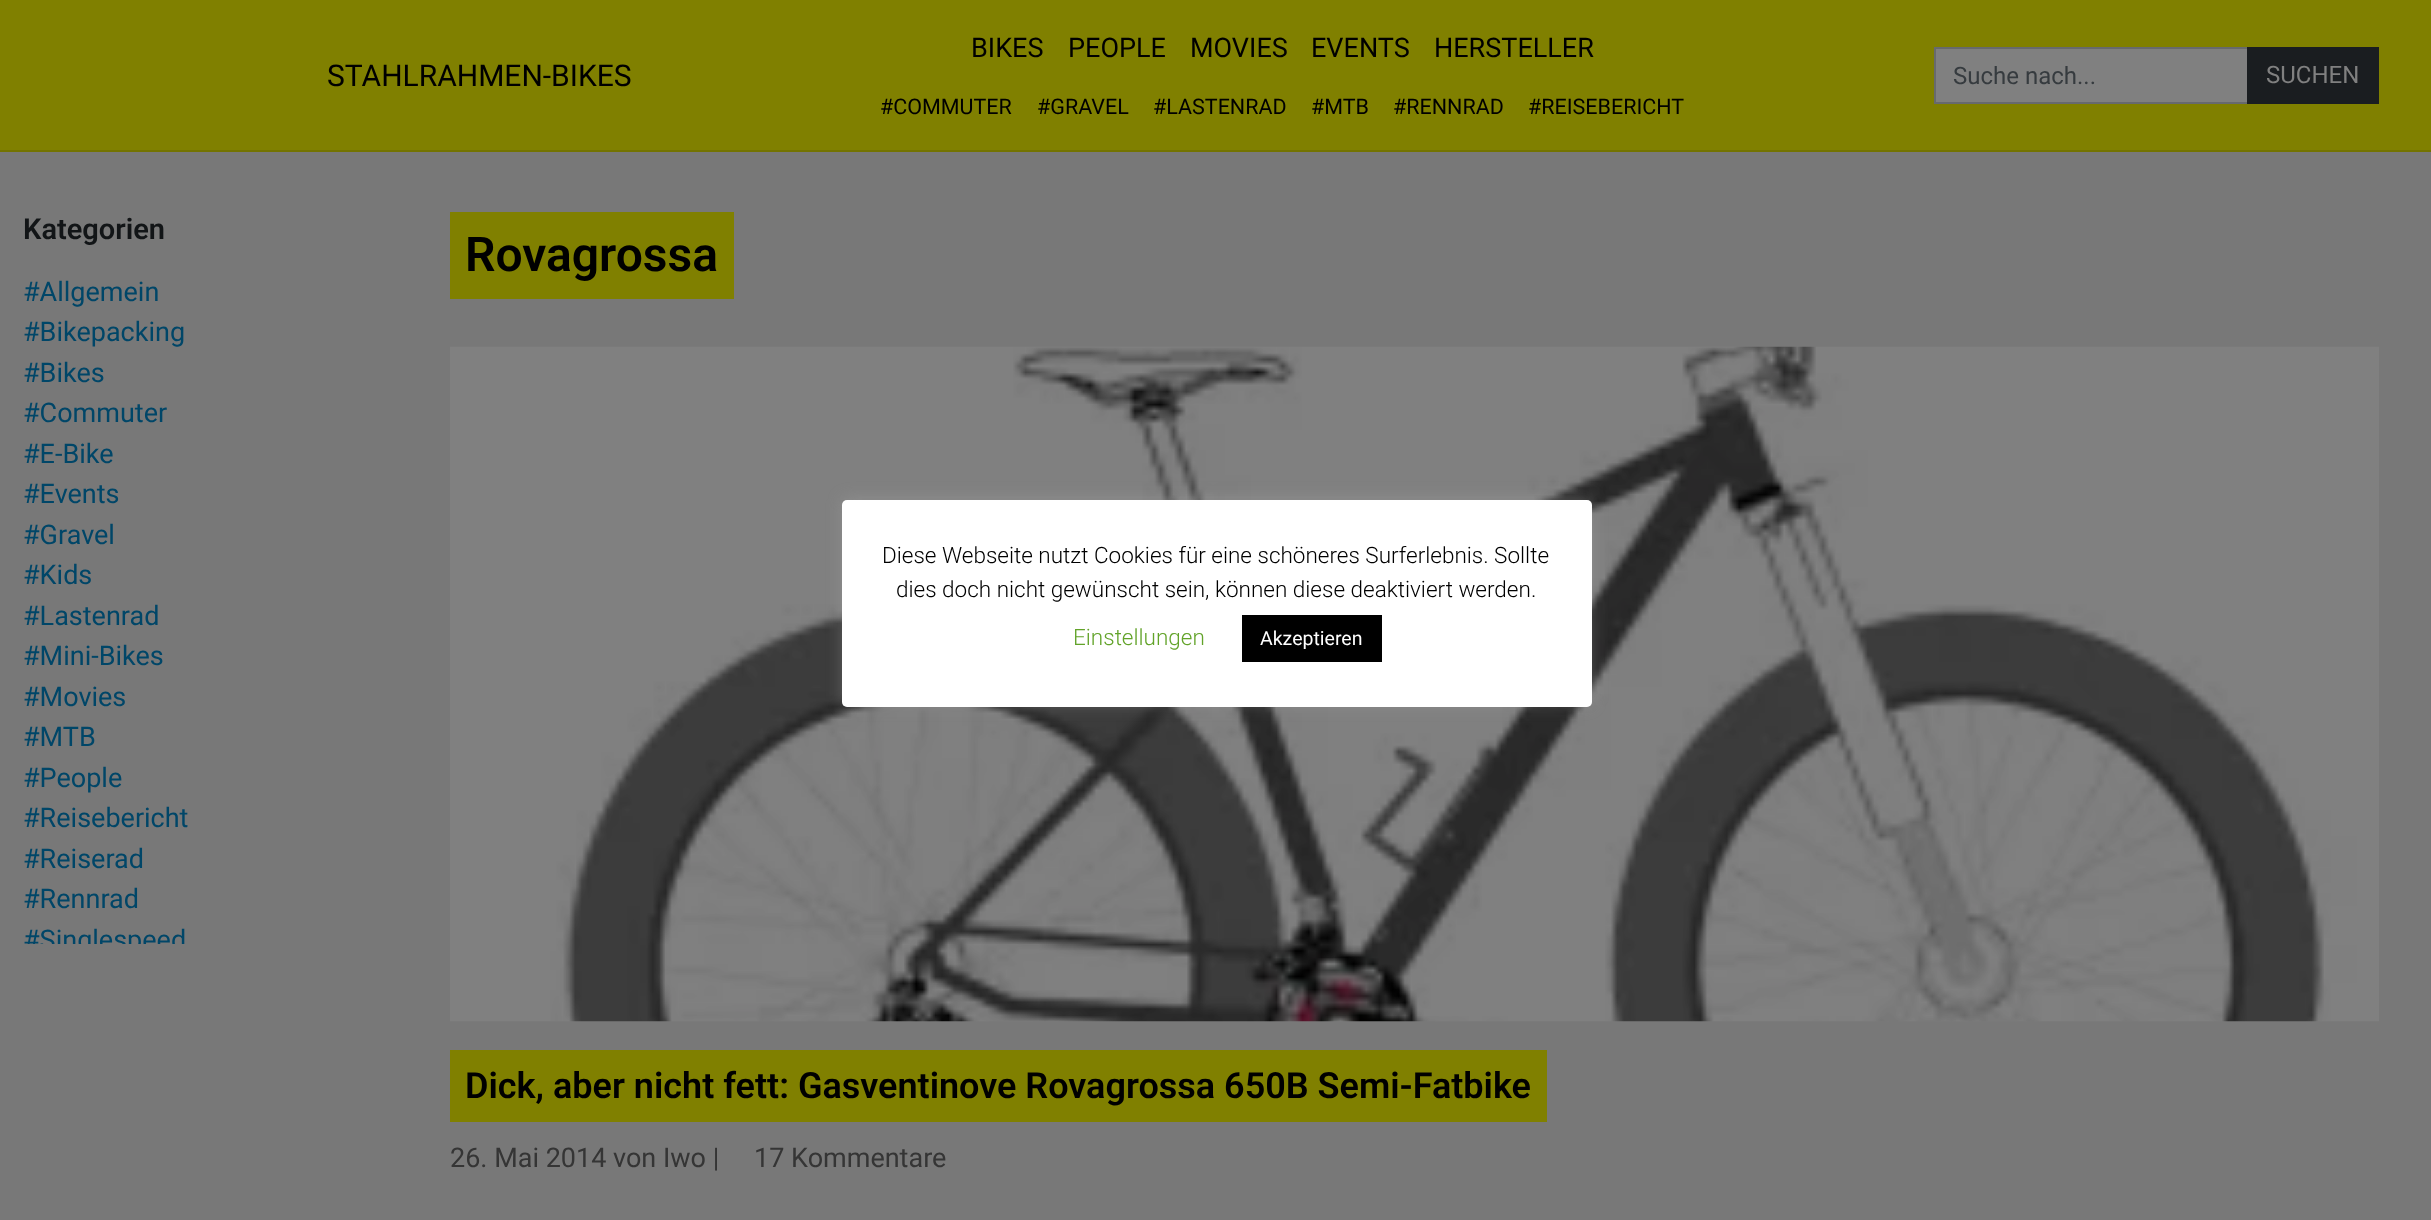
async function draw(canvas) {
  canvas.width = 2431
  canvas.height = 1220
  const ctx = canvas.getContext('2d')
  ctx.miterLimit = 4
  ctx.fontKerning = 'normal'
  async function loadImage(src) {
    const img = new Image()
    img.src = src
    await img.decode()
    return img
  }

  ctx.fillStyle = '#787878'
  ctx.fillRect(0, 0, 2431, 1220)
  ctx.fillStyle = '#808000'
  ctx.fillRect(0, 0, 2431, 150)
  ctx.fillStyle = '#737300'
  ctx.fillRect(0, 150, 2431, 2)
  ctx.font = '30px Roboto'
  ctx.fillStyle = '#000'
  ctx.fillText('STAHLRAHMEN-BIKES', 327, 86)
  ctx.font = '27px Roboto'
  ctx.fillText('BIKES', 971, 57)
  ctx.fillText('PEOPLE', 1068, 57)
  ctx.fillText('MOVIES', 1190, 57)
  ctx.fillText('EVENTS', 1311, 57)
  ctx.fillText('HERSTELLER', 1434, 57)
  ctx.font = '21.5px Roboto'
  ctx.fillText('#COMMUTER', 880, 114)
  ctx.fillText('#GRAVEL', 1037, 114)
  ctx.fillText('#LASTENRAD', 1153, 114)
  ctx.fillText('#MTB', 1311, 114)
  ctx.fillText('#RENNRAD', 1393, 114)
  ctx.fillText('#REISEBERICHT', 1528, 114)
  ctx.fillStyle = '#808080'
  ctx.fillRect(1936, 49, 311, 53)
  ctx.strokeStyle = '#676a6d'
  ctx.lineWidth = 2
  ctx.strokeRect(1935, 48, 443, 55)
  ctx.font = '24px Roboto'
  ctx.fillStyle = '#363b3f'
  ctx.fillText('Suche nach...', 1953, 84)
  ctx.fillStyle = '#1a1d20'
  ctx.fillRect(2247, 47, 132, 57)
  ctx.fillStyle = '#808080'
  ctx.fillText('SUCHEN', 2266, 83)
  ctx.font = '600 29px Roboto'
  ctx.fillStyle = '#121517'
  ctx.fillText('Kategorien', 23, 239)
  ctx.font = '27px Roboto'
  ctx.fillStyle = '#004668'
  ctx.fillText('#Allgemein', 23, 301)
  ctx.fillText('#Bikepacking', 23, 341)
  ctx.fillText('#Bikes', 23, 382)
  ctx.fillText('#Commuter', 23, 422)
  ctx.fillText('#E-Bike', 23, 463)
  ctx.fillText('#Events', 23, 503)
  ctx.fillText('#Gravel', 23, 544)
  ctx.fillText('#Kids', 23, 584)
  ctx.fillText('#Lastenrad', 23, 625)
  ctx.fillText('#Mini-Bikes', 23, 665)
  ctx.fillText('#Movies', 23, 706)
  ctx.fillText('#MTB', 23, 746)
  ctx.fillText('#People', 23, 787)
  ctx.fillText('#Reisebericht', 23, 827)
  ctx.fillText('#Reiserad', 23, 868)
  ctx.fillText('#Rennrad', 23, 908)
  ctx.save()
  ctx.beginPath()
  ctx.rect(23, 212, 397, 732)
  ctx.clip()
  ctx.fillText('#Singlespeed', 23, 949)
  ctx.restore()
  ctx.strokeStyle = '#808000'
  ctx.lineWidth = 15
  ctx.strokeRect(457.5, 219.5, 269, 72)
  ctx.fillStyle = '#808000'
  ctx.fillRect(465, 227, 254, 57)
  ctx.font = '600 48px Roboto'
  ctx.fillStyle = '#000'
  ctx.fillText('Rovagrossa', 465, 271)
  ctx.drawImage(await loadImage('image0.png'), 450, 346, 1929, 676)
  ctx.strokeRect(457.5, 1057.5, 1082, 57)
  ctx.fillStyle = '#808000'
  ctx.fillRect(465, 1065, 1067, 42)
  ctx.font = '600 36px Roboto'
  ctx.fillStyle = '#000'
  ctx.fillText('Dick, aber nicht fett: Gasventinove Rovagrossa 650B Semi-Fatbike', 465, 1098)
  ctx.font = '27px Roboto'
  ctx.fillStyle = '#353535'
  ctx.fillText('26. Mai 2014 von Iwo |', 450, 1167)
  ctx.fillText('17 Kommentare', 754, 1167)
  ctx.fillStyle = '#acabab4d'
  ctx.filter = 'blur(7.5px)'
  ctx.beginPath()
  ctx.roundRect(842, 498, 750, 207, 5)
  ctx.fill()
  ctx.filter = 'none'
  ctx.fillStyle = '#fff'
  ctx.beginPath()
  ctx.roundRect(842, 500, 750, 207, 5)
  ctx.fill()
  ctx.font = '300 22.5px Roboto'
  ctx.fillStyle = '#000'
  ctx.fillText('Diese Webseite nutzt Cookies für eine schöneres Surferlebnis. Sollte', 882, 563)
  ctx.fillText('dies doch nicht gewünscht sein, können diese deaktiviert werden.', 896, 597)
  ctx.fillStyle = '#62a329'
  ctx.fillText('Einstellungen', 1073, 645)
  ctx.fillStyle = '#000'
  ctx.fillRect(1242, 615, 140, 47)
  ctx.font = '19.5px Roboto'
  ctx.fillStyle = '#fff'
  ctx.fillText('Akzeptieren', 1260, 645)
}

draw(document.querySelector('canvas'))
